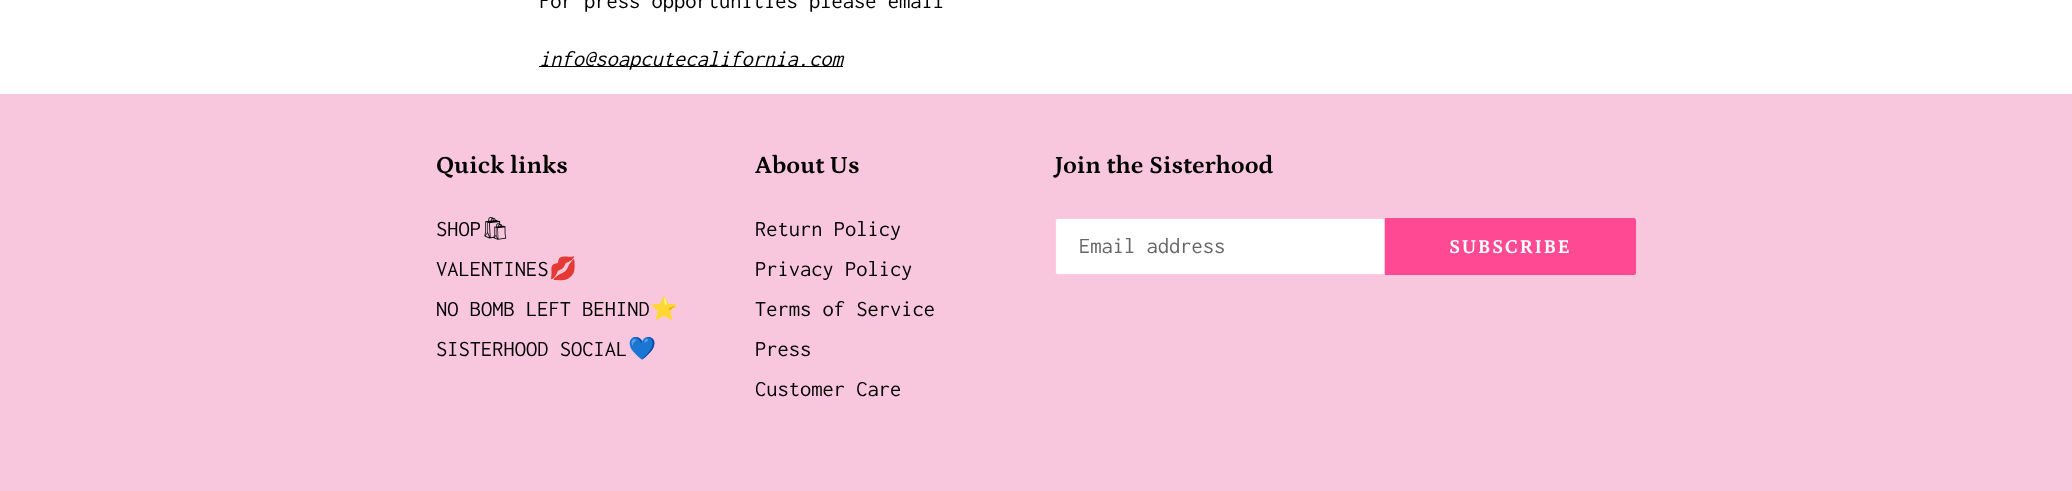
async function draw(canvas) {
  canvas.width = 2072
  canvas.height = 491
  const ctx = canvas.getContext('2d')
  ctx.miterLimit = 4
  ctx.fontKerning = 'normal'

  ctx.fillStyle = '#fff'
  ctx.fillRect(0, 0, 2072, 491)
  ctx.font = '22.5px Inconsolata'
  ctx.fillStyle = '#000'
  ctx.fillText('For press opportunities please email', 539, 8)
  ctx.fillRect(539, 66, 304, 1)
  ctx.font = 'italic 22.5px Inconsolata'
  ctx.fillText('info@soapcutecalifornia.com', 539, 66)
  ctx.fillStyle = '#f9c7dd'
  ctx.fillRect(0, 94, 2072, 397)
  ctx.font = 'bold 25px Petrona'
  ctx.fillStyle = '#000'
  ctx.fillText('Quick links', 436, 173)
  ctx.font = '22.5px Inconsolata'
  ctx.fillText('SHOP', 436, 236)
  ctx.font = '22.5px Noto Emoji'
  ctx.fillText('🛍', 481, 236)
  ctx.font = '22.5px Inconsolata'
  ctx.fillText('VALENTINES', 436, 276)
  ctx.font = '22.5px Noto Color Emoji'
  ctx.fillText('💋', 549, 276)
  ctx.font = '22.5px Inconsolata'
  ctx.fillText('NO BOMB LEFT BEHIND', 436, 316)
  ctx.font = '22.5px Noto Color Emoji'
  ctx.fillText('⭐️', 650, 316)
  ctx.font = '22.5px Inconsolata'
  ctx.fillText('SISTERHOOD SOCIAL', 436, 356)
  ctx.font = '22.5px Noto Color Emoji'
  ctx.fillText('💙', 628, 356)
  ctx.font = 'bold 25px Petrona'
  ctx.fillText('About Us', 755, 173)
  ctx.font = '22.5px Inconsolata'
  ctx.fillText('Return Policy', 755, 236)
  ctx.fillText('Privacy Policy', 755, 276)
  ctx.fillText('Terms of Service', 755, 316)
  ctx.fillText('Press', 755, 356)
  ctx.fillText('Customer Care', 755, 396)
  ctx.font = 'bold 25px Petrona'
  ctx.fillText('Join the Sisterhood', 1055, 173)
  ctx.fillStyle = '#fff'
  ctx.beginPath()
  ctx.roundRect(1055.5, 218.5, 329, 56, [2, 0, 0, 2])
  ctx.fill()
  ctx.strokeStyle = '#ffc9e1'
  ctx.stroke()
  ctx.font = '22.5px Inconsolata'
  ctx.fillStyle = '#666'
  ctx.fillText('Email address', 1079, 253)
  ctx.fillStyle = '#ff4993'
  ctx.beginPath()
  ctx.roundRect(1385, 218, 251, 57, [0, 2.5, 2.5, 0])
  ctx.fill()
  ctx.letterSpacing = '1.5px'
  ctx.font = 'bold 20px Petrona'
  ctx.fillStyle = '#fff'
  ctx.fillText('SUBSCRIBE', 1449, 253)
}

draw(document.querySelector('canvas'))
